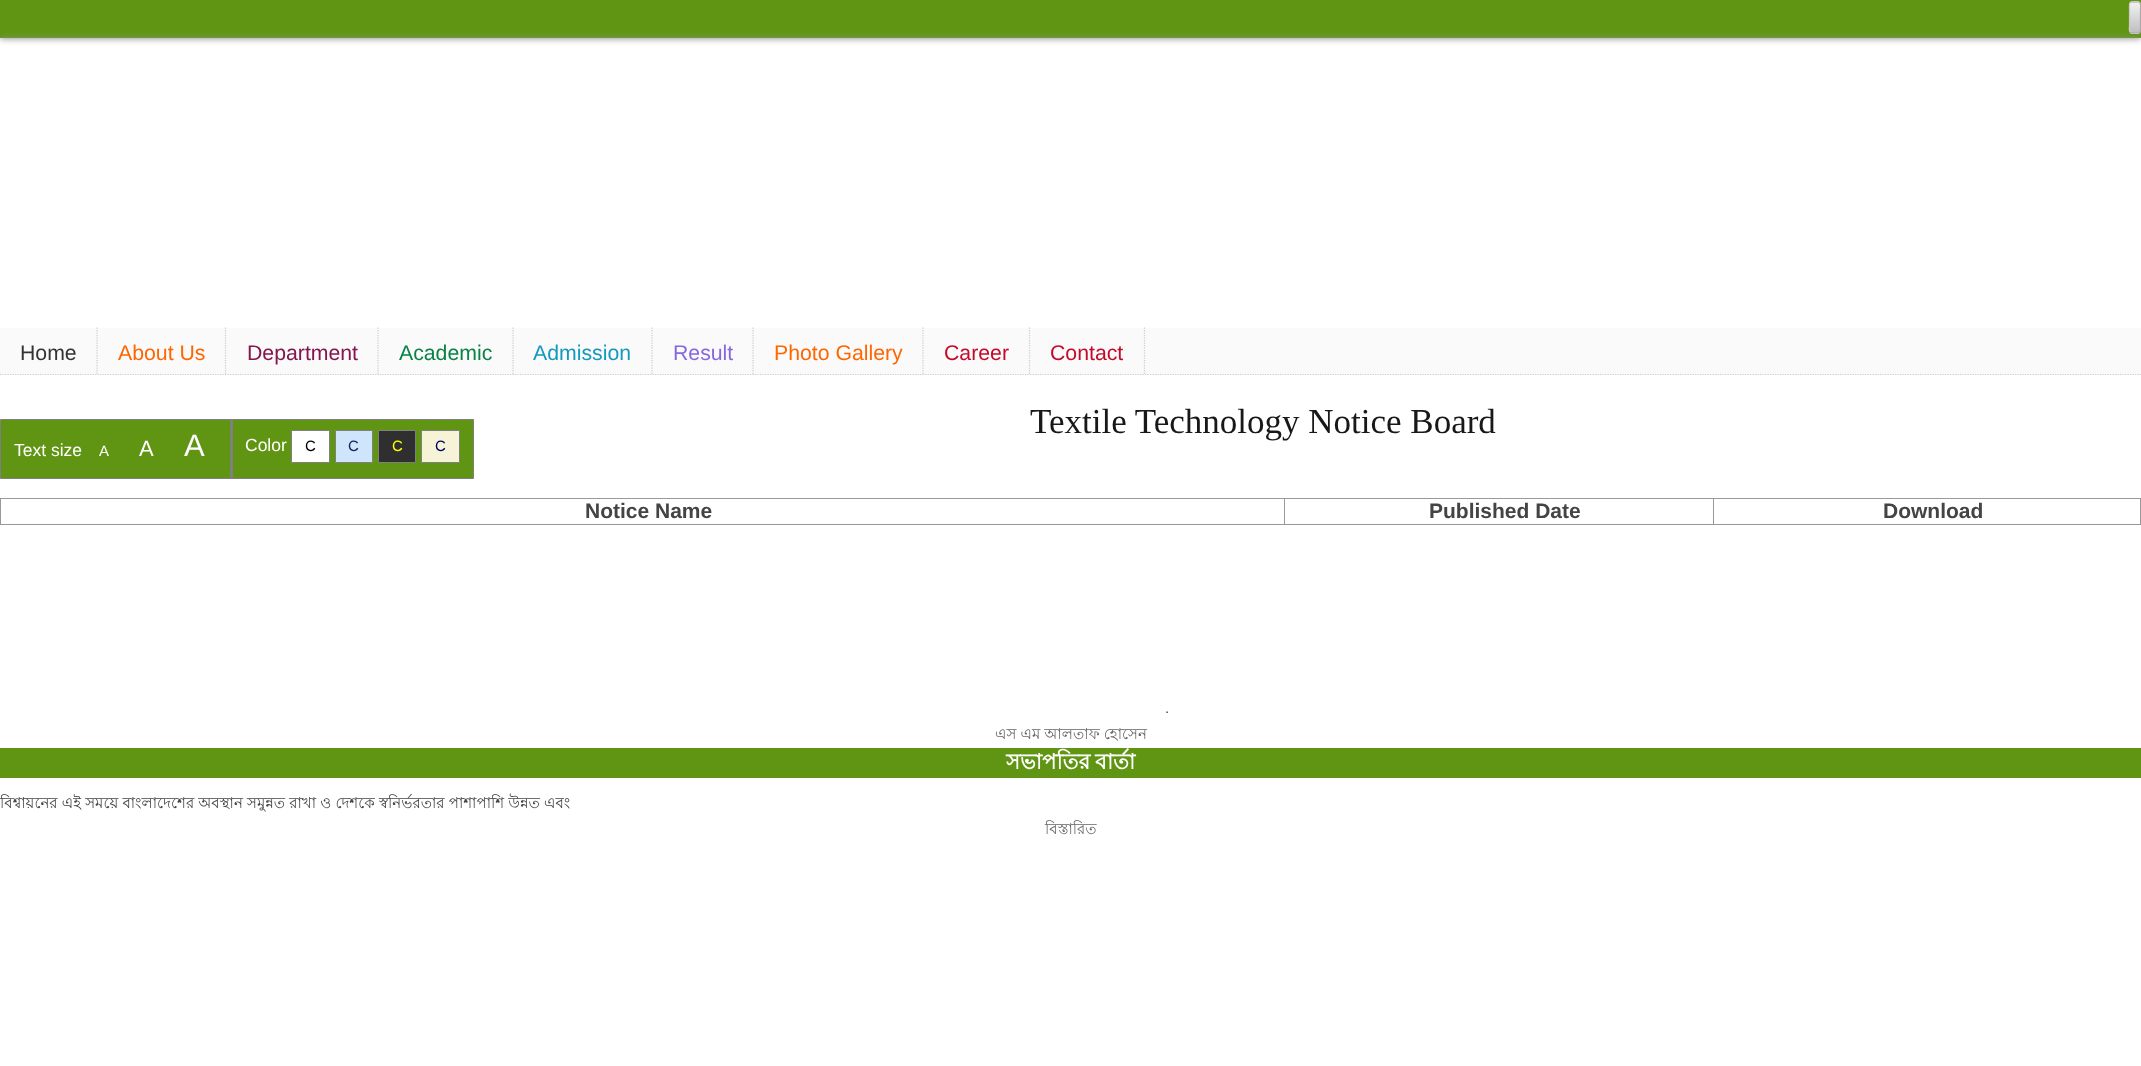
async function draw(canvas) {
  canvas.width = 2141
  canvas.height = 1066
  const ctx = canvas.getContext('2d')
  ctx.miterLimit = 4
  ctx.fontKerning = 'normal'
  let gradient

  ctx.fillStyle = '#fff'
  ctx.fillRect(0, 0, 2141, 1066)
  ctx.fillStyle = '#999'
  ctx.filter = 'blur(3px)'
  ctx.beginPath()
  ctx.rect(0, 1, 2141, 38)
  ctx.fill()
  ctx.filter = 'none'
  ctx.fillStyle = '#609513'
  ctx.fillRect(0, 0, 2141, 38)
  ctx.fillStyle = '#eee'
  ctx.beginPath()
  ctx.roundRect(2129, 1, 12, 33, 4)
  ctx.fill()
  ctx.save()
  ctx.beginPath()
  ctx.roundRect(2129, 1, 12, 33, 4)
  ctx.clip()
  gradient = ctx.createLinearGradient(2135, -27, 2135, 2.5)
  gradient.addColorStop(0, '#ffffff33')
  gradient.addColorStop(1, '#00000033')
  ctx.fillStyle = gradient
  ctx.fillRect(2129, 1, 12, 2)
  gradient = ctx.createLinearGradient(2135, 2.5, 2135, 33)
  gradient.addColorStop(0, '#ffffff33')
  gradient.addColorStop(1, '#00000033')
  ctx.fillStyle = gradient
  ctx.fillRect(2129, 3, 12, 30)
  gradient = ctx.createLinearGradient(2135, 33, 2135, 63)
  gradient.addColorStop(0, '#ffffff33')
  gradient.addColorStop(1, '#00000033')
  ctx.fillStyle = gradient
  ctx.fillRect(2129, 33, 12, 1)
  ctx.restore()
  ctx.beginPath()
  ctx.moveTo(2139.5, 3)
  ctx.bezierCurveTo(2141.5, 4.5, 2140.5, 7.5, 2140.5, 9)
  ctx.lineTo(2140.5, 26)
  ctx.bezierCurveTo(2140.5, 28, 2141.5, 32, 2138.5, 33)
  ctx.lineTo(2135, 33)
  ctx.bezierCurveTo(2133.5, 33, 2131.5, 33.5, 2130.5, 32)
  ctx.strokeStyle = '#aaa'
  ctx.lineWidth = 1.2
  ctx.stroke()
  ctx.beginPath()
  ctx.moveTo(2130.5, 32)
  ctx.bezierCurveTo(2128.5, 30.5, 2129.5, 27.5, 2129.5, 26)
  ctx.lineTo(2129.5, 9)
  ctx.bezierCurveTo(2129.5, 7, 2128.5, 3, 2131.5, 2)
  ctx.lineTo(2135, 2)
  ctx.bezierCurveTo(2136.5, 2, 2138.5, 1.5, 2139.5, 3)
  ctx.strokeStyle = '#ccc'
  ctx.stroke()
  ctx.save()
  ctx.beginPath()
  ctx.moveTo(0, 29)
  ctx.lineTo(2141, 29)
  ctx.lineTo(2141, 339)
  ctx.lineTo(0, 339)
  ctx.closePath()
  ctx.moveTo(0, 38)
  ctx.lineTo(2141, 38)
  ctx.lineTo(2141, 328)
  ctx.lineTo(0, 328)
  ctx.closePath()
  ctx.clip('evenodd')
  ctx.fillStyle = '#999'
  ctx.filter = 'blur(3px)'
  ctx.beginPath()
  ctx.rect(0, 39, 2141, 290)
  ctx.fill()
  ctx.filter = 'none'
  ctx.restore()
  ctx.fillStyle = '#fafafa'
  ctx.fillRect(0, 328, 2141, 47)
  ctx.beginPath()
  ctx.moveTo(0, 374.5)
  ctx.lineTo(2141, 374.5)
  ctx.setLineDash([1.25, 1.25])
  ctx.stroke()
  ctx.beginPath()
  ctx.moveTo(97, 327.5)
  ctx.lineTo(97, 374)
  ctx.stroke()
  ctx.font = '21.25px Liberation Sans'
  ctx.fillStyle = '#333'
  ctx.fillText('Home', 20, 360)
  ctx.beginPath()
  ctx.moveTo(225.5, 327.5)
  ctx.lineTo(225.5, 374)
  ctx.stroke()
  ctx.fillStyle = '#f60'
  ctx.fillText('About Us', 118, 360)
  ctx.beginPath()
  ctx.moveTo(378, 327.5)
  ctx.lineTo(378, 374)
  ctx.stroke()
  ctx.fillStyle = '#84154d'
  ctx.fillText('Department', 247, 360)
  ctx.beginPath()
  ctx.moveTo(513, 327.5)
  ctx.lineTo(513, 374)
  ctx.stroke()
  ctx.fillStyle = '#098346'
  ctx.fillText('Academic', 399, 360)
  ctx.beginPath()
  ctx.moveTo(652, 327.5)
  ctx.lineTo(652, 374)
  ctx.stroke()
  ctx.fillStyle = '#1399be'
  ctx.fillText('Admission', 533, 360)
  ctx.beginPath()
  ctx.moveTo(753, 327.5)
  ctx.lineTo(753, 374)
  ctx.stroke()
  ctx.fillStyle = '#8768de'
  ctx.fillText('Result', 673, 360)
  ctx.beginPath()
  ctx.moveTo(923, 327.5)
  ctx.lineTo(923, 374)
  ctx.stroke()
  ctx.fillStyle = '#f60'
  ctx.fillText('Photo Gallery', 774, 360)
  ctx.beginPath()
  ctx.moveTo(1029.5, 327.5)
  ctx.lineTo(1029.5, 374)
  ctx.stroke()
  ctx.fillStyle = '#c40a2a'
  ctx.fillText('Career', 944, 360)
  ctx.beginPath()
  ctx.moveTo(1144.5, 327.5)
  ctx.lineTo(1144.5, 374)
  ctx.stroke()
  ctx.fillText('Contact', 1050, 360)
  ctx.fillStyle = '#609513'
  ctx.beginPath()
  ctx.rect(0.5, 419.5, 473, 59)
  ctx.fill()
  ctx.strokeStyle = '#808080'
  ctx.lineWidth = 1
  ctx.setLineDash([])
  ctx.stroke()
  ctx.fillStyle = '#808080'
  ctx.fillRect(230, 420, 3, 58)
  ctx.font = '17.5px Liberation Sans'
  ctx.fillStyle = '#fff'
  ctx.fillText('Text size', 14, 456)
  ctx.font = '15px Liberation Sans'
  ctx.fillText('A', 99, 456)
  ctx.font = '22px Liberation Sans'
  ctx.fillText('A', 139, 456)
  ctx.font = '31px Liberation Sans'
  ctx.fillText('A', 184, 456)
  ctx.font = '17.5px Liberation Sans'
  ctx.fillText('Color', 245, 451)
  ctx.beginPath()
  ctx.rect(291.5, 430.5, 38, 32)
  ctx.fill()
  ctx.stroke()
  ctx.font = '15px Liberation Sans'
  ctx.fillStyle = '#000'
  ctx.fillText('C', 305, 451)
  ctx.fillStyle = '#cfe5fc'
  ctx.beginPath()
  ctx.rect(335.5, 430.5, 37, 32)
  ctx.fill()
  ctx.stroke()
  ctx.fillStyle = '#21205f'
  ctx.fillText('C', 348, 451)
  ctx.fillStyle = '#2f2f2f'
  ctx.beginPath()
  ctx.rect(378.5, 430.5, 37, 32)
  ctx.fill()
  ctx.stroke()
  ctx.fillStyle = '#ff0'
  ctx.fillText('C', 392, 451)
  ctx.fillStyle = '#f7f3d6'
  ctx.beginPath()
  ctx.rect(421.5, 430.5, 38, 32)
  ctx.fill()
  ctx.stroke()
  ctx.fillStyle = '#006'
  ctx.fillText('C', 435, 451)
  ctx.font = '35px Liberation Serif'
  ctx.fillStyle = '#181818'
  ctx.fillText('Textile Technology Notice Board', 1030, 433)
  ctx.fillStyle = '#999'
  ctx.fillRect(0, 498, 2141, 1)
  ctx.fillRect(2140, 498, 1, 27)
  ctx.fillRect(0, 524, 2141, 1)
  ctx.fillRect(0, 498, 1, 27)
  ctx.font = 'bold 21px Liberation Sans'
  ctx.fillStyle = '#444'
  ctx.fillText('Notice Name', 585, 518)
  ctx.fillStyle = '#999'
  ctx.fillRect(1284, 498, 1, 27)
  ctx.fillStyle = '#444'
  ctx.fillText('Published Date', 1429, 518)
  ctx.fillStyle = '#999'
  ctx.fillRect(1713, 498, 1, 27)
  ctx.fillStyle = '#444'
  ctx.fillText('Download', 1883, 518)
  ctx.font = '15px Liberation Sans'
  ctx.fillText('.', 1165, 713)
  ctx.font = '15px Lohit Bengali'
  ctx.fillStyle = '#666'
  ctx.fillText('এস এম আলতাফ হোসেন', 995, 739)
  ctx.fillStyle = '#609513'
  ctx.fillRect(0, 748, 2141, 30)
  ctx.wordSpacing = '-1px'
  ctx.font = 'bold 21.25px Lohit Bengali'
  ctx.fillStyle = '#fff'
  ctx.fillText('সভাপতির বার্তা', 1006, 769)
  ctx.wordSpacing = '0px'
  ctx.font = '15px Lohit Bengali'
  ctx.fillStyle = '#444'
  ctx.fillText('বিশ্বায়নের এই সময়ে বাংলাদেশের অবস্থান সমুন্নত রাখা ও দেশকে স্বনির্ভরতার পাশাপাশি উন্নত এবং', 0, 808)
  ctx.fillStyle = '#666'
  ctx.fillText('বিস্তারিত', 1045, 834)
}

draw(document.querySelector('canvas'))
